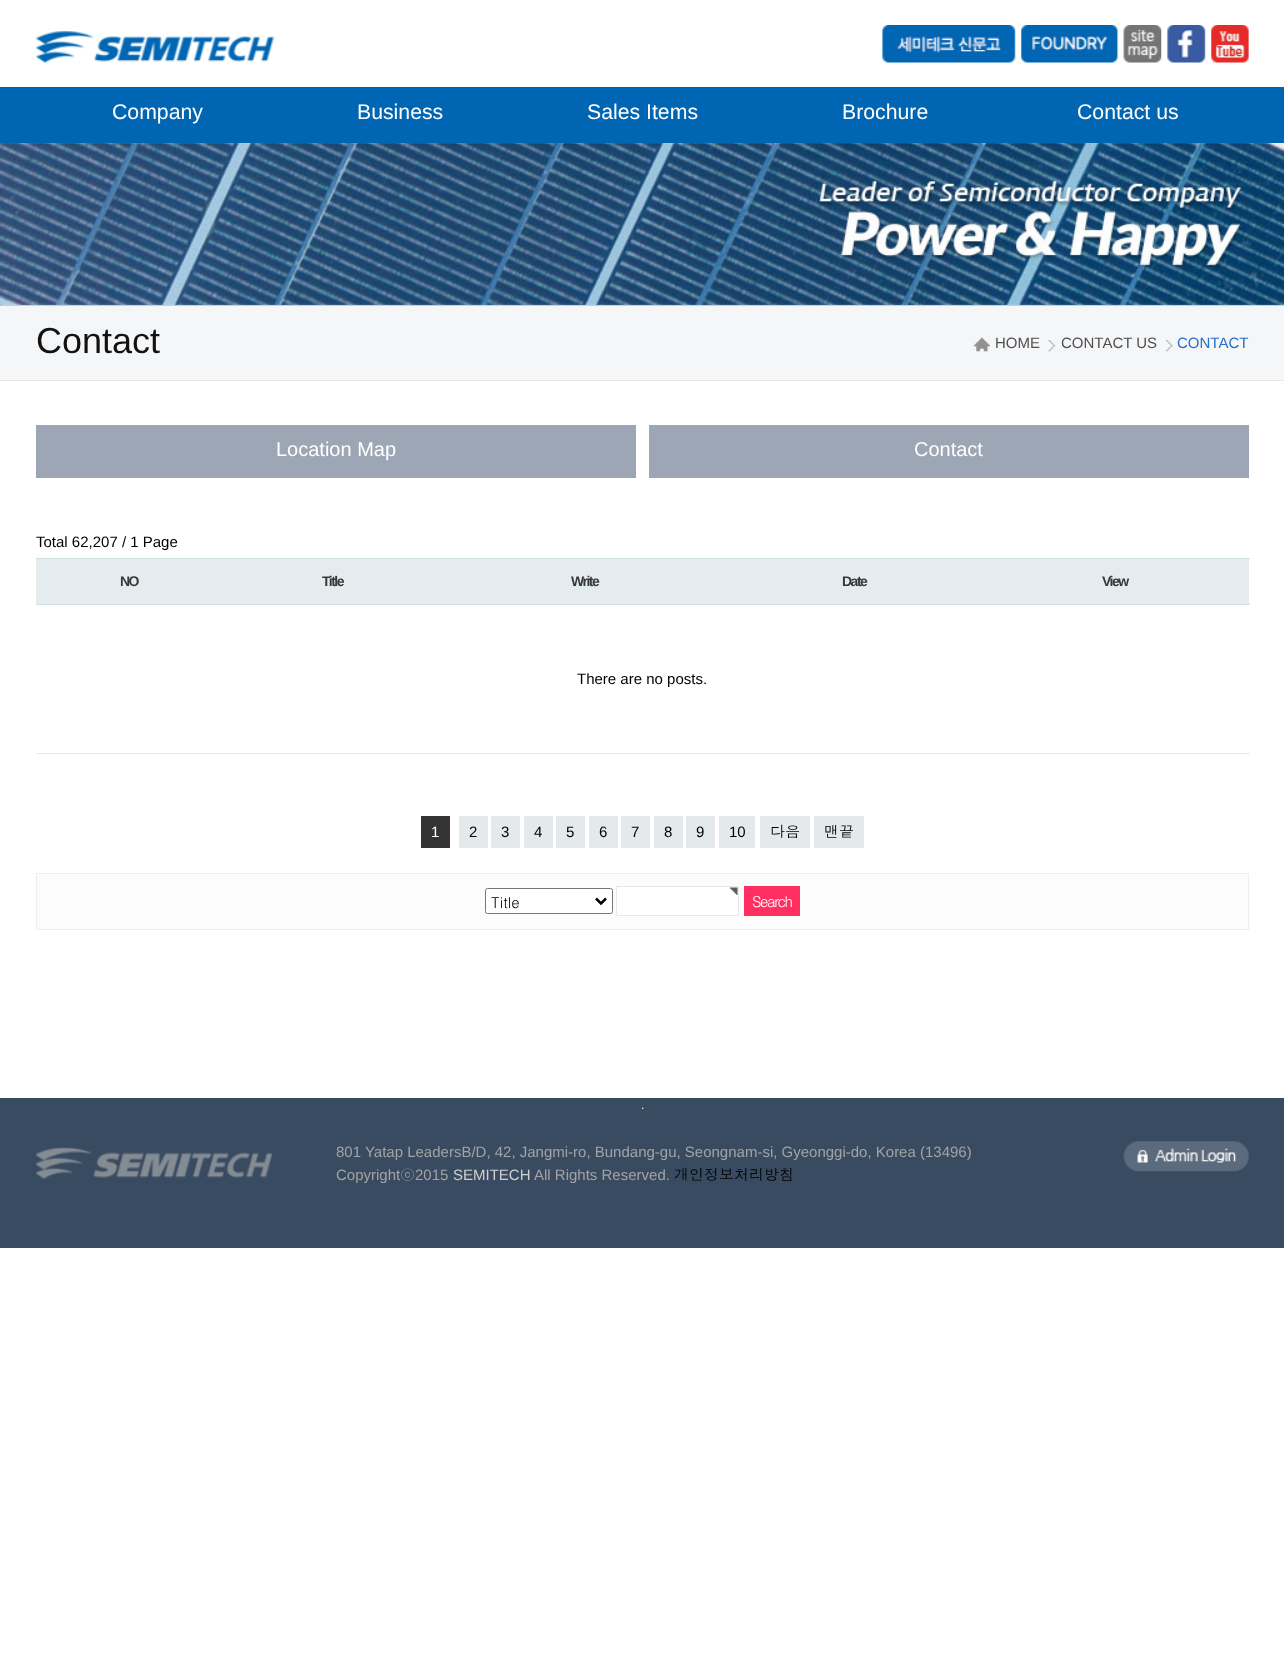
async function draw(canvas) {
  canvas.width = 1284
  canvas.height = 1657
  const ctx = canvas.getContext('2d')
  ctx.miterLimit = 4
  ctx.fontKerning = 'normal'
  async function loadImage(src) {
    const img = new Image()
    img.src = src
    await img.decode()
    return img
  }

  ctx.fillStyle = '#fff'
  ctx.fillRect(0, 0, 1284, 1657)
  ctx.fillStyle = '#0066b3'
  ctx.fillRect(0, 87, 1284, 56)
  ctx.drawImage(await loadImage('image0.png'), 36, 31, 239, 32)
  ctx.drawImage(await loadImage('image1.png'), 882, 25, 134, 38)
  ctx.drawImage(await loadImage('image2.png'), 1021, 25, 98, 38)
  ctx.drawImage(await loadImage('image3.png'), 1123, 25, 39, 38)
  ctx.drawImage(await loadImage('image4.png'), 1167, 25, 39, 38)
  ctx.drawImage(await loadImage('image5.png'), 1211, 25, 38, 38)
  ctx.font = '21.25px Liberation Sans'
  ctx.fillStyle = '#fff'
  ctx.fillText('Company', 112, 119)
  ctx.fillText('Business', 357, 119)
  ctx.fillText('Sales Items', 587, 119)
  ctx.fillText('Brochure', 842, 119)
  ctx.fillText('Contact us', 1077, 119)
  ctx.drawImage(await loadImage('image6.png'), 0, 143, 1284, 162)
  ctx.fillStyle = '#f5f6f8'
  ctx.fillRect(0, 306, 1284, 74)
  ctx.fillStyle = '#cdcdcd'
  ctx.fillRect(0, 305, 1284, 1)
  ctx.fillStyle = '#e6e6e6'
  ctx.fillRect(0, 380, 1284, 1)
  ctx.font = '36px Liberation Sans'
  ctx.fillStyle = '#121212'
  ctx.fillText('Contact', 36, 353)
  ctx.drawImage(await loadImage('image7.png'), 973, 337, 17, 15)
  ctx.font = '15px Liberation Sans'
  ctx.fillStyle = '#505050'
  ctx.fillText('HOME', 995, 348)
  ctx.drawImage(await loadImage('image8.png'), 1048, 340, 8, 12)
  ctx.fillText('CONTACT US', 1061, 348)
  ctx.drawImage(await loadImage('image9.png'), 1166, 340, 7, 12)
  ctx.fillStyle = '#266fcc'
  ctx.fillText('CONTACT', 1177, 348)
  ctx.fillStyle = '#9da6b4'
  ctx.fillRect(36, 425, 600, 53)
  ctx.font = '20px Liberation Sans'
  ctx.fillStyle = '#fff'
  ctx.fillText('Location Map', 276, 456)
  ctx.fillStyle = '#9da6b4'
  ctx.fillRect(649, 425, 600, 53)
  ctx.fillStyle = '#fff'
  ctx.fillText('Contact', 914, 456)
  ctx.font = '15px Liberation Sans'
  ctx.fillStyle = '#000'
  ctx.fillText('Total 62,207 / 1 Page', 36, 547)
  ctx.fillStyle = '#e5ecef'
  ctx.fillRect(36, 559, 1213, 45)
  ctx.letterSpacing = '-1.5px'
  ctx.font = 'bold 14px Liberation Sans'
  ctx.fillStyle = '#383838'
  ctx.fillText('NO', 120, 586)
  ctx.fillText('Title', 322, 586)
  ctx.fillText('Write', 571, 586)
  ctx.fillText('Date', 842, 586)
  ctx.fillStyle = '#d1dee2'
  ctx.fillRect(36, 558, 1214, 1)
  ctx.fillRect(36, 604, 1214, 1)
  ctx.fillStyle = '#383838'
  ctx.fillText('View', 1102, 586)
  ctx.fillStyle = '#e9e9e9'
  ctx.fillRect(36, 753, 1214, 1)
  ctx.letterSpacing = '0px'
  ctx.font = '15px Liberation Sans'
  ctx.fillStyle = '#000'
  ctx.fillText('There are no posts.', 577, 684)
  ctx.fillStyle = '#333'
  ctx.fillRect(421, 816, 29, 32)
  ctx.fillStyle = '#fff'
  ctx.fillText('1', 431, 837)
  ctx.fillStyle = '#e4eaec'
  ctx.fillRect(459, 816, 29, 32)
  ctx.fillStyle = '#000'
  ctx.fillText('2', 469, 837)
  ctx.fillStyle = '#e4eaec'
  ctx.fillRect(491, 816, 29, 32)
  ctx.fillStyle = '#000'
  ctx.fillText('3', 501, 837)
  ctx.fillStyle = '#e4eaec'
  ctx.fillRect(524, 816, 29, 32)
  ctx.fillStyle = '#000'
  ctx.fillText('4', 534, 837)
  ctx.fillStyle = '#e4eaec'
  ctx.fillRect(556, 816, 29, 32)
  ctx.fillStyle = '#000'
  ctx.fillText('5', 566, 837)
  ctx.fillStyle = '#e4eaec'
  ctx.fillRect(589, 816, 29, 32)
  ctx.fillStyle = '#000'
  ctx.fillText('6', 599, 837)
  ctx.fillStyle = '#e4eaec'
  ctx.fillRect(621, 816, 29, 32)
  ctx.fillStyle = '#000'
  ctx.fillText('7', 631, 837)
  ctx.fillStyle = '#e4eaec'
  ctx.fillRect(654, 816, 29, 32)
  ctx.fillStyle = '#000'
  ctx.fillText('8', 664, 837)
  ctx.fillStyle = '#e4eaec'
  ctx.fillRect(686, 816, 29, 32)
  ctx.fillStyle = '#000'
  ctx.fillText('9', 696, 837)
  ctx.fillStyle = '#e4eaec'
  ctx.fillRect(719, 816, 36, 32)
  ctx.fillStyle = '#000'
  ctx.fillText('10', 729, 837)
  ctx.fillStyle = '#e4eaec'
  ctx.fillRect(760, 816, 50, 32)
  ctx.font = '15px Dotum'
  ctx.fillStyle = '#000'
  ctx.fillText('다음', 770, 837)
  ctx.fillStyle = '#e4eaec'
  ctx.fillRect(814, 816, 50, 32)
  ctx.fillStyle = '#000'
  ctx.fillText('맨끝', 824, 837)
  ctx.fillStyle = '#fcfcfc'
  ctx.beginPath()
  ctx.rect(36.5, 873.5, 1212, 56)
  ctx.fill()
  ctx.strokeStyle = '#eee'
  ctx.stroke()
  ctx.fillStyle = '#fff'
  ctx.beginPath()
  ctx.roundRect(485.5, 888.5, 127, 25, 2)
  ctx.fill()
  ctx.strokeStyle = '#767676'
  ctx.stroke()
  ctx.beginPath()
  ctx.moveTo(596, 898.5)
  ctx.lineTo(601, 903.5)
  ctx.lineTo(606, 898.5)
  ctx.strokeStyle = '#000'
  ctx.lineWidth = 2.5
  ctx.stroke()
  ctx.fillStyle = '#000'
  ctx.fillText('Title', 491, 908)
  ctx.fillStyle = '#fff'
  ctx.fillRect(617, 887, 121, 28)
  ctx.drawImage(await loadImage('image10.png'), 730, 887, 8, 8)
  ctx.strokeStyle = '#e4eaec'
  ctx.lineWidth = 1
  ctx.strokeRect(616.5, 886.5, 122, 29)
  ctx.fillStyle = '#ff3061'
  ctx.fillRect(744, 886, 56, 30)
  ctx.letterSpacing = '-1.5px'
  ctx.fillStyle = '#fff'
  ctx.fillText('Search', 752, 907)
  ctx.fillStyle = '#394b61'
  ctx.fillRect(0, 1098, 1284, 150)
  ctx.letterSpacing = '0px'
  ctx.font = '12px Liberation Sans'
  ctx.fillStyle = '#fff'
  ctx.fillText('.', 641, 1109)
  ctx.drawImage(await loadImage('image11.png'), 36, 1147, 237, 32)
  ctx.font = '15px Liberation Sans'
  ctx.fillStyle = '#a3a3a3'
  ctx.fillText('801 Yatap LeadersB/D, 42, Jangmi-ro, Bundang-gu, Seongnam-si, Gyeonggi-do, Korea (13496)', 336, 1157)
  ctx.fillText('Copyright', 336, 1180)
  ctx.font = '15px Dotum'
  ctx.fillText('ⓒ', 400, 1180)
  ctx.font = '15px Liberation Sans'
  ctx.fillText('2015', 415, 1180)
  ctx.fillStyle = '#d0cfcf'
  ctx.fillText('SEMITECH', 453, 1180)
  ctx.fillStyle = '#a3a3a3'
  ctx.fillText('All Rights Reserved.', 534, 1180)
  ctx.font = '15px Dotum'
  ctx.fillStyle = '#000'
  ctx.fillText('개인정보처리방침', 674, 1180)
  ctx.drawImage(await loadImage('image12.png'), 1123, 1141, 126, 31)
}

draw(document.querySelector('canvas'))
